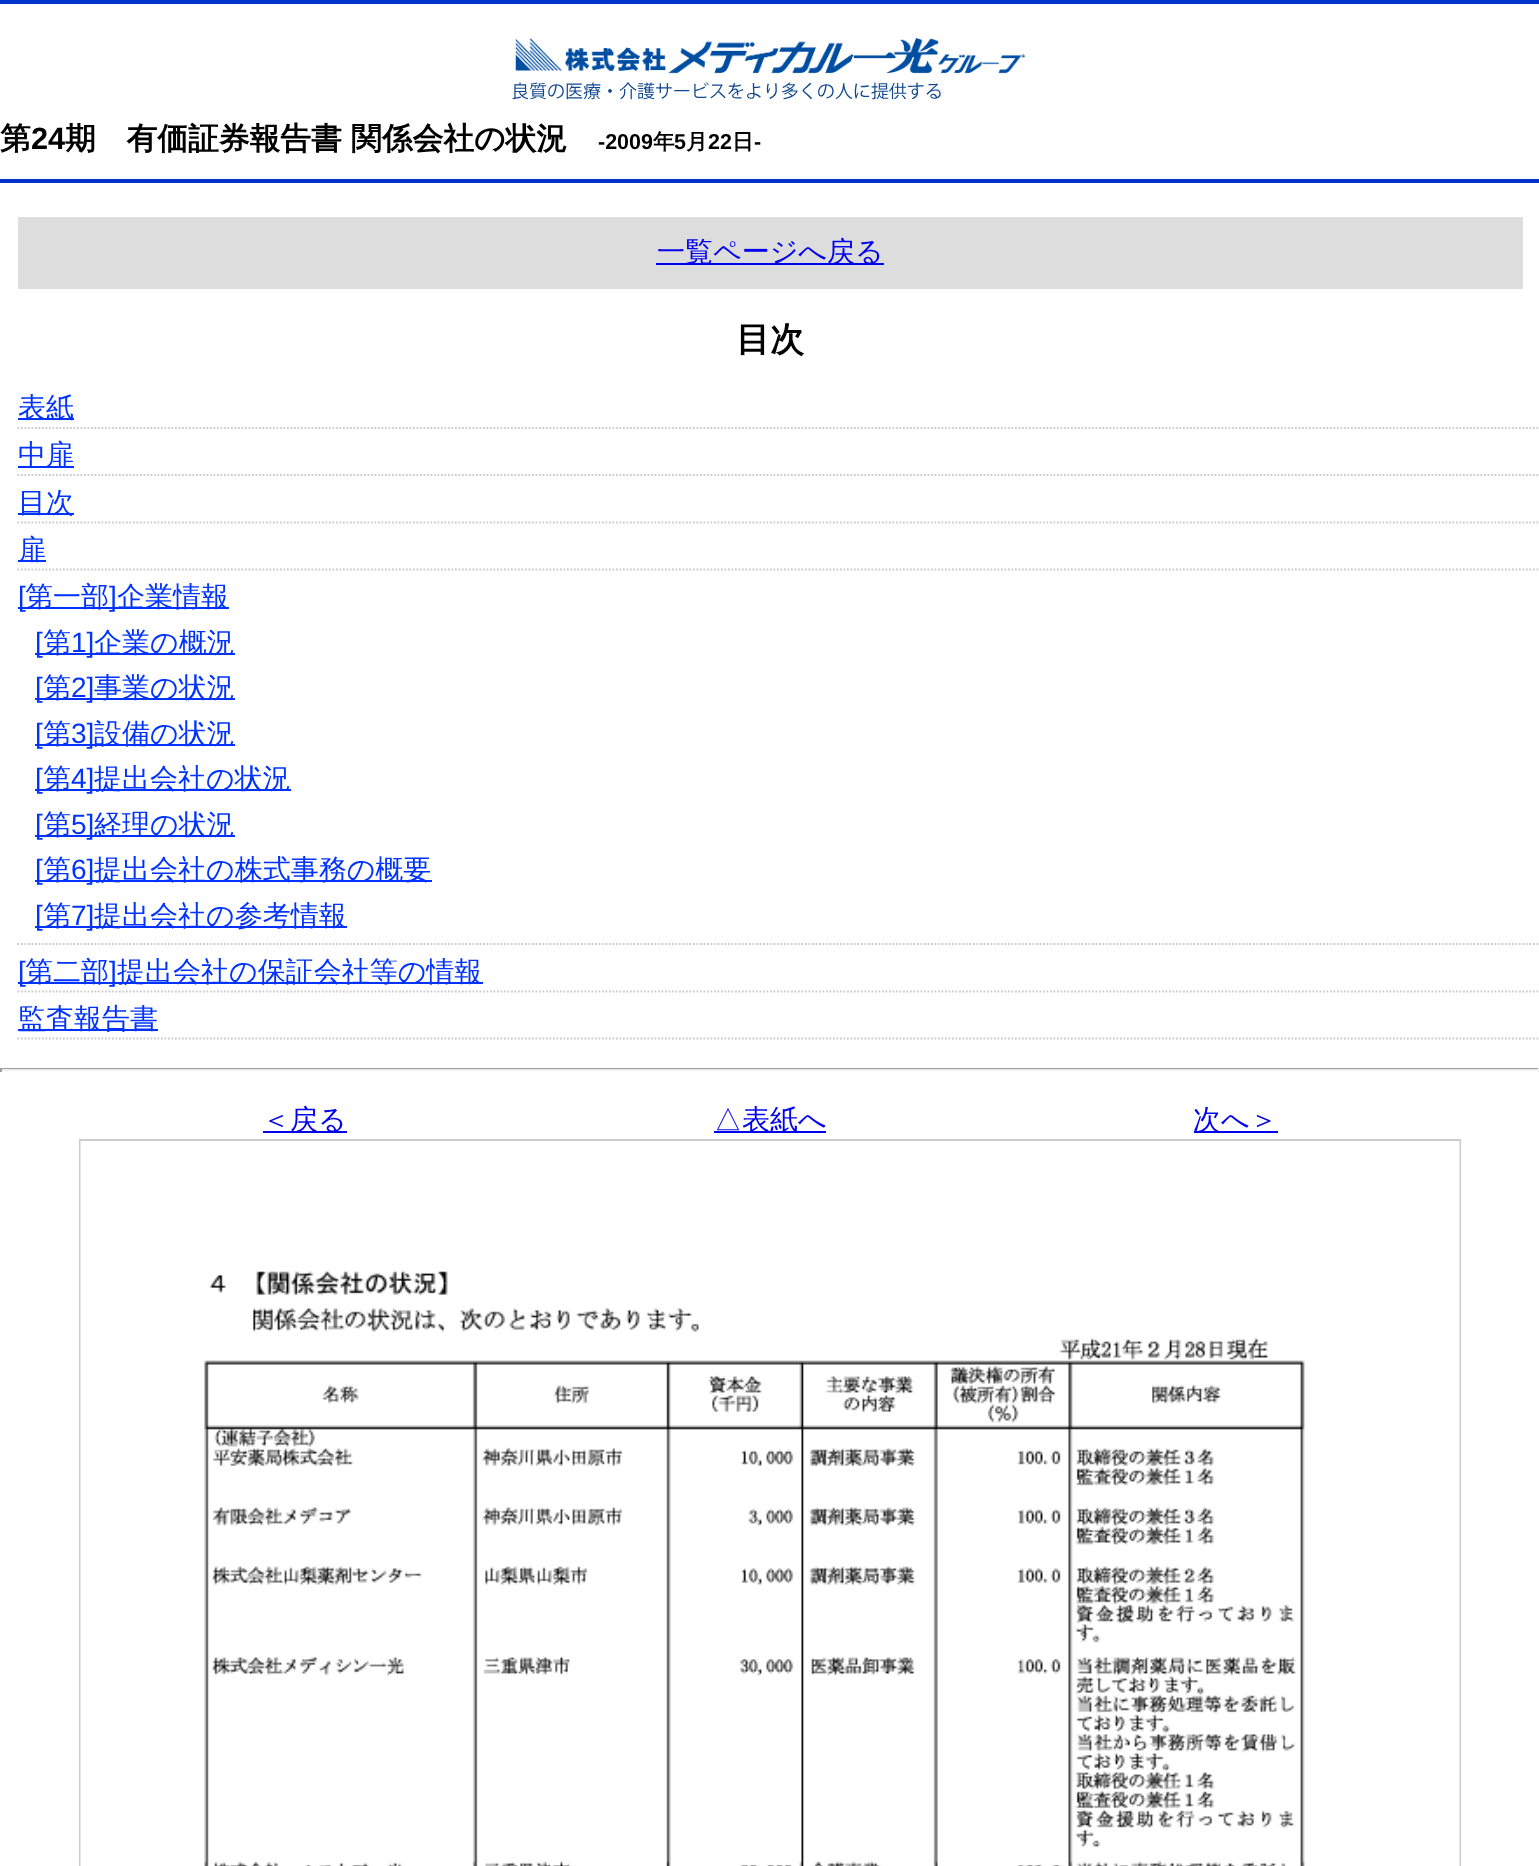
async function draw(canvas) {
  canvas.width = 1539
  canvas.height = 1866
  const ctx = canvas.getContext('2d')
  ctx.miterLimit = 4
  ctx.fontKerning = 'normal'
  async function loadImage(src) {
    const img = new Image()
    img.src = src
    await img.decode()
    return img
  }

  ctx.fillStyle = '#fff'
  ctx.fillRect(0, 0, 1539, 1866)
  ctx.fillStyle = '#03c'
  ctx.fillRect(0, 0, 1539, 4)
  ctx.fillRect(0, 179, 1539, 4)
  ctx.drawImage(await loadImage('image0.png'), 512, 38, 514, 62)
  ctx.font = 'bold 30.75px WenQuanYi Zen Hei'
  ctx.fillStyle = '#000'
  ctx.fillText('第', 0, 149)
  ctx.font = 'bold 30.75px Liberation Sans'
  ctx.fillText('24', 31, 149)
  ctx.font = 'bold 30.75px WenQuanYi Zen Hei'
  ctx.fillText('期　有価証券報告書', 65, 149)
  ctx.fillText('関係会社の状況', 351, 149)
  ctx.font = 'bold 21.5px Liberation Sans'
  ctx.fillText('-2009', 598, 149)
  ctx.font = 'bold 21.5px WenQuanYi Zen Hei'
  ctx.fillText('年', 653, 149)
  ctx.font = 'bold 21.5px Liberation Sans'
  ctx.fillText('5', 674, 149)
  ctx.font = 'bold 21.5px WenQuanYi Zen Hei'
  ctx.fillText('月', 686, 149)
  ctx.font = 'bold 21.5px Liberation Sans'
  ctx.fillText('22', 708, 149)
  ctx.font = 'bold 21.5px WenQuanYi Zen Hei'
  ctx.fillText('日', 732, 149)
  ctx.font = 'bold 21.5px Liberation Sans'
  ctx.fillText('-', 754, 149)
  ctx.fillStyle = '#ddd'
  ctx.fillRect(18, 217, 1505, 72)
  ctx.fillStyle = '#00e'
  ctx.fillRect(656, 263, 228, 2)
  ctx.font = '500 28px WenQuanYi Zen Hei'
  ctx.fillText('一覧ページへ戻る', 657, 261)
  ctx.font = 'bold 34px WenQuanYi Zen Hei'
  ctx.fillStyle = '#000'
  ctx.fillText('目次', 736, 351)
  ctx.beginPath()
  ctx.moveTo(17.5, 428)
  ctx.lineTo(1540, 428)
  ctx.strokeStyle = '#ccc'
  ctx.lineWidth = 1.8
  ctx.setLineDash([1.75, 1.75])
  ctx.stroke()
  ctx.fillStyle = '#03f'
  ctx.fillRect(18, 418, 56, 2)
  ctx.font = '500 28px WenQuanYi Zen Hei'
  ctx.fillText('表紙', 18, 417)
  ctx.beginPath()
  ctx.moveTo(17.5, 475)
  ctx.lineTo(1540, 475)
  ctx.stroke()
  ctx.fillRect(18, 466, 56, 2)
  ctx.fillText('中扉', 18, 464)
  ctx.beginPath()
  ctx.moveTo(17.5, 522.5)
  ctx.lineTo(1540, 522.5)
  ctx.stroke()
  ctx.fillRect(18, 513, 56, 2)
  ctx.fillText('目次', 18, 512)
  ctx.beginPath()
  ctx.moveTo(17.5, 569.5)
  ctx.lineTo(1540, 569.5)
  ctx.stroke()
  ctx.fillRect(18, 560, 28, 2)
  ctx.fillText('扉', 18, 559)
  ctx.beginPath()
  ctx.moveTo(17.5, 944)
  ctx.lineTo(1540, 944)
  ctx.stroke()
  ctx.fillRect(18, 607, 211, 2)
  ctx.font = '28px Liberation Sans'
  ctx.fillText('[', 18, 606)
  ctx.font = '500 28px WenQuanYi Zen Hei'
  ctx.fillText('第一部', 25, 606)
  ctx.font = '28px Liberation Sans'
  ctx.fillText(']', 109, 606)
  ctx.font = '500 28px WenQuanYi Zen Hei'
  ctx.fillText('企業情報', 117, 606)
  ctx.fillRect(35, 653, 200, 2)
  ctx.font = '28px Liberation Sans'
  ctx.fillText('[', 35, 652)
  ctx.font = '500 28px WenQuanYi Zen Hei'
  ctx.fillText('第', 43, 652)
  ctx.font = '28px Liberation Sans'
  ctx.fillText('1]', 71, 652)
  ctx.font = '500 28px WenQuanYi Zen Hei'
  ctx.fillText('企業の概況', 94, 652)
  ctx.fillRect(35, 698, 200, 2)
  ctx.font = '28px Liberation Sans'
  ctx.fillText('[', 35, 697)
  ctx.font = '500 28px WenQuanYi Zen Hei'
  ctx.fillText('第', 43, 697)
  ctx.font = '28px Liberation Sans'
  ctx.fillText('2]', 71, 697)
  ctx.font = '500 28px WenQuanYi Zen Hei'
  ctx.fillText('事業の状況', 94, 697)
  ctx.fillRect(35, 744, 200, 2)
  ctx.font = '28px Liberation Sans'
  ctx.fillText('[', 35, 743)
  ctx.font = '500 28px WenQuanYi Zen Hei'
  ctx.fillText('第', 43, 743)
  ctx.font = '28px Liberation Sans'
  ctx.fillText('3]', 71, 743)
  ctx.font = '500 28px WenQuanYi Zen Hei'
  ctx.fillText('設備の状況', 94, 743)
  ctx.fillRect(35, 789, 256, 2)
  ctx.font = '28px Liberation Sans'
  ctx.fillText('[', 35, 788)
  ctx.font = '500 28px WenQuanYi Zen Hei'
  ctx.fillText('第', 43, 788)
  ctx.font = '28px Liberation Sans'
  ctx.fillText('4]', 71, 788)
  ctx.font = '500 28px WenQuanYi Zen Hei'
  ctx.fillText('提出会社の状況', 94, 788)
  ctx.fillRect(35, 835, 200, 2)
  ctx.font = '28px Liberation Sans'
  ctx.fillText('[', 35, 834)
  ctx.font = '500 28px WenQuanYi Zen Hei'
  ctx.fillText('第', 43, 834)
  ctx.font = '28px Liberation Sans'
  ctx.fillText('5]', 71, 834)
  ctx.font = '500 28px WenQuanYi Zen Hei'
  ctx.fillText('経理の状況', 94, 834)
  ctx.fillRect(35, 880, 397, 2)
  ctx.font = '28px Liberation Sans'
  ctx.fillText('[', 35, 879)
  ctx.font = '500 28px WenQuanYi Zen Hei'
  ctx.fillText('第', 43, 879)
  ctx.font = '28px Liberation Sans'
  ctx.fillText('6]', 71, 879)
  ctx.font = '500 28px WenQuanYi Zen Hei'
  ctx.fillText('提出会社の株式事務の概要', 94, 879)
  ctx.fillRect(35, 926, 312, 2)
  ctx.font = '28px Liberation Sans'
  ctx.fillText('[', 35, 925)
  ctx.font = '500 28px WenQuanYi Zen Hei'
  ctx.fillText('第', 43, 925)
  ctx.font = '28px Liberation Sans'
  ctx.fillText('7]', 71, 925)
  ctx.font = '500 28px WenQuanYi Zen Hei'
  ctx.fillText('提出会社の参考情報', 94, 925)
  ctx.beginPath()
  ctx.moveTo(17.5, 991.5)
  ctx.lineTo(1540, 991.5)
  ctx.stroke()
  ctx.fillRect(18, 982, 465, 2)
  ctx.font = '28px Liberation Sans'
  ctx.fillText('[', 18, 981)
  ctx.font = '500 28px WenQuanYi Zen Hei'
  ctx.fillText('第二部', 25, 981)
  ctx.font = '28px Liberation Sans'
  ctx.fillText(']', 109, 981)
  ctx.font = '500 28px WenQuanYi Zen Hei'
  ctx.fillText('提出会社の保証会社等の情報', 117, 981)
  ctx.beginPath()
  ctx.moveTo(17.5, 1038.5)
  ctx.lineTo(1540, 1038.5)
  ctx.stroke()
  ctx.fillRect(18, 1029, 140, 2)
  ctx.fillText('監査報告書', 18, 1028)
  ctx.fillStyle = '#9f9f9f'
  ctx.fillRect(0, 1068, 1539, 1)
  ctx.fillStyle = '#eee'
  ctx.fillRect(1538, 1068, 1, 4)
  ctx.fillRect(0, 1069, 1539, 2)
  ctx.fillStyle = '#9f9f9f'
  ctx.fillRect(0, 1068, 2, 4)
  ctx.fillStyle = '#00e'
  ctx.fillRect(263, 1131, 84, 2)
  ctx.fillText('＜戻る', 262, 1129)
  ctx.fillRect(714, 1131, 112, 2)
  ctx.fillText('△表紙へ', 714, 1129)
  ctx.fillRect(1194, 1131, 84, 2)
  ctx.fillText('次へ＞', 1193, 1129)
  ctx.lineWidth = 2
  ctx.setLineDash([])
  ctx.strokeRect(80, 1140, 1380, 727)
  ctx.drawImage(await loadImage('image1.png'), 80, 1141, 1380, 725)
}

draw(document.querySelector('canvas'))
